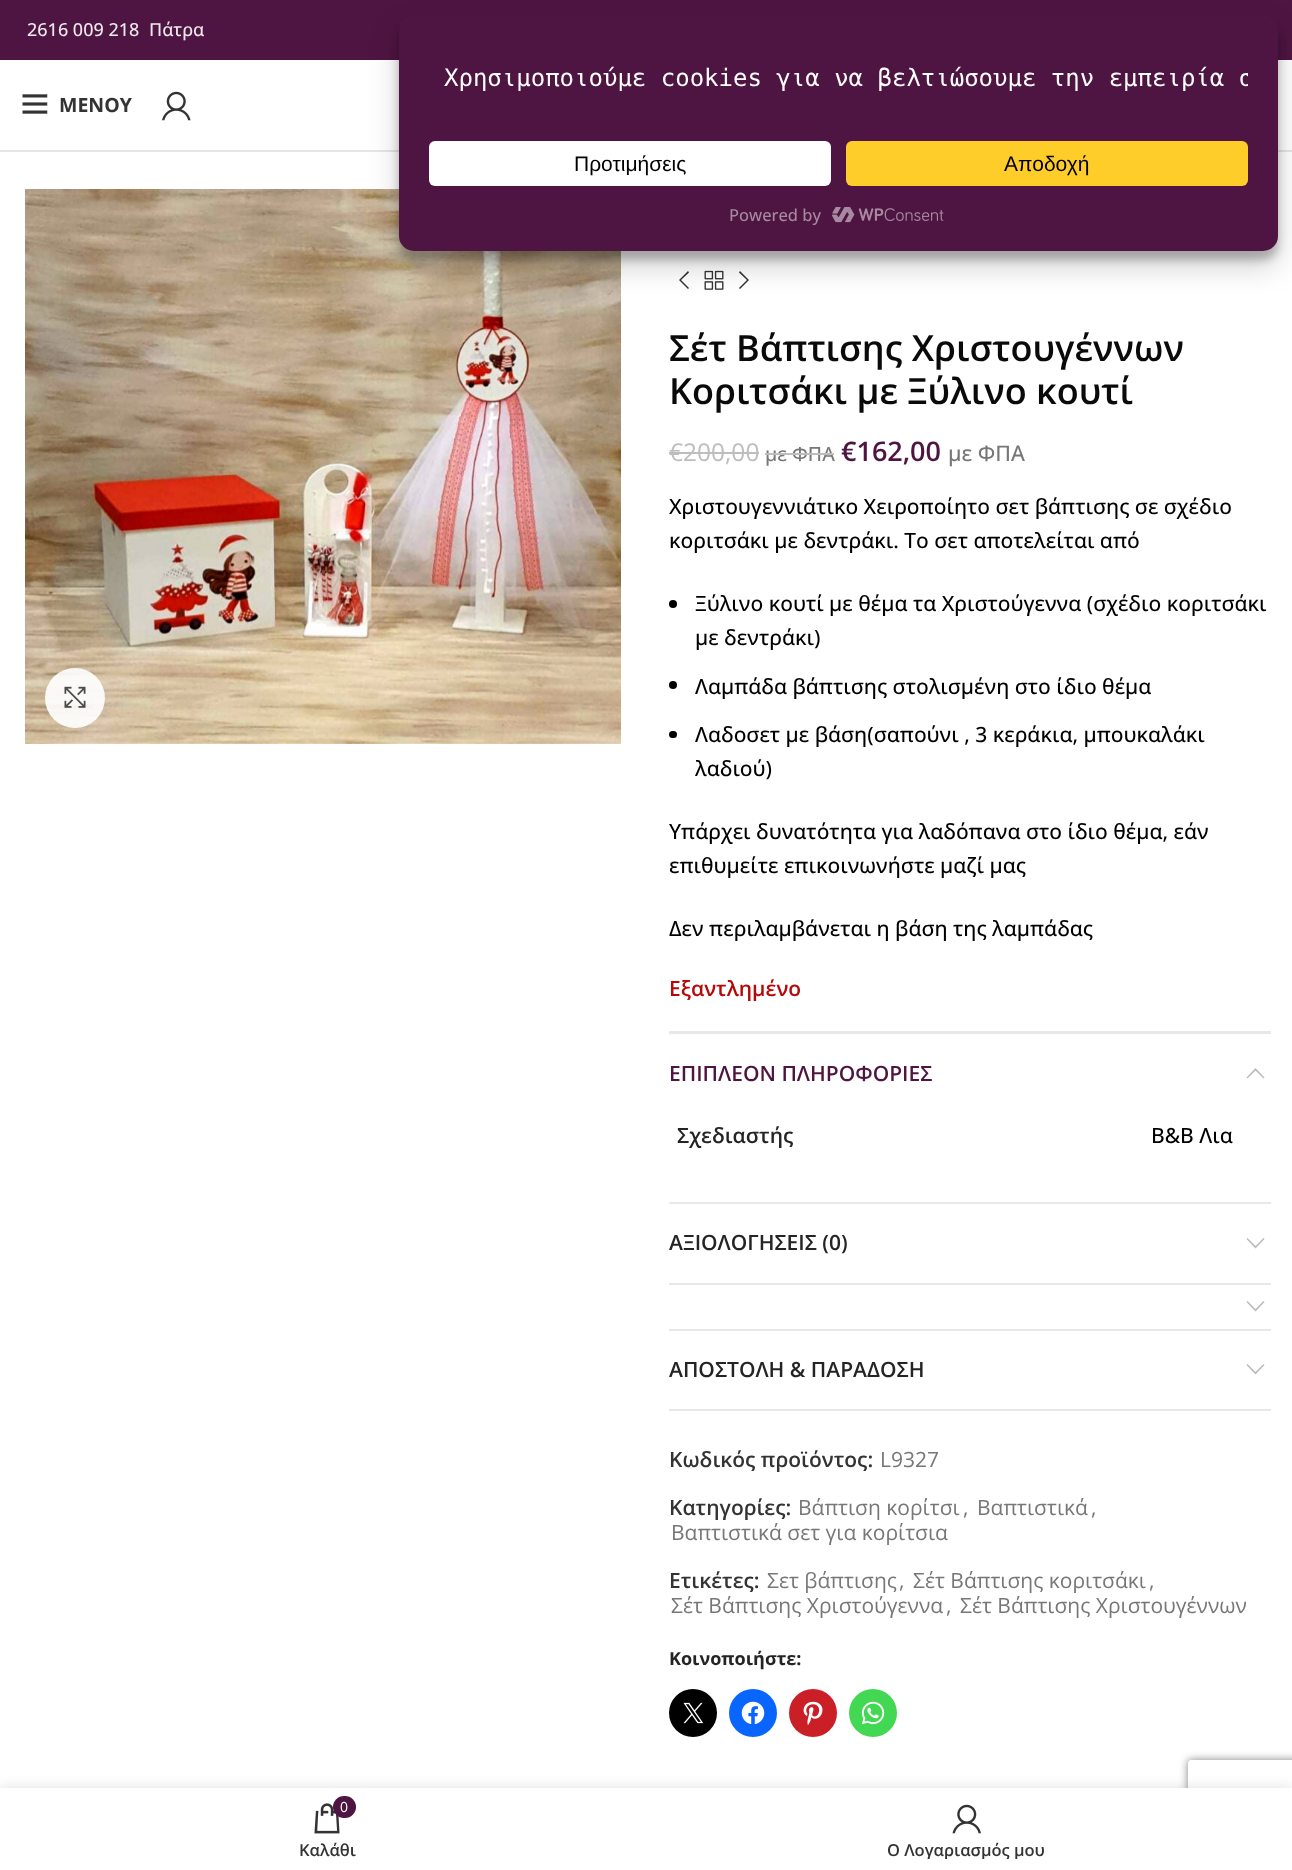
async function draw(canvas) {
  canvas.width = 1292
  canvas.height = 1870
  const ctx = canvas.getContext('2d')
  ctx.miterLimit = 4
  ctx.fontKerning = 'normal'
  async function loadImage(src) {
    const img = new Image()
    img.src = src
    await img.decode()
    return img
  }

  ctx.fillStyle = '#fff'
  ctx.fillRect(0, 0, 1292, 1870)
  ctx.fillStyle = '#4f1542'
  ctx.fillRect(0, 0, 1292, 60)
  ctx.font = '500 18px Open Sans'
  ctx.fillStyle = '#ede8ec'
  ctx.fillText('2616 009 218', 27, 36)
  ctx.fillText('Πάτρα', 149, 36)
  ctx.fillStyle = '#e6e6e6'
  ctx.fillRect(0, 150, 1292, 2)
  ctx.drawImage(await loadImage('image0.png'), 22, 94, 26, 20)
  ctx.font = 'bold 19.5px Open Sans'
  ctx.fillStyle = '#333'
  ctx.fillText('ΜΕΝΟΥ', 59, 112)
  ctx.drawImage(await loadImage('image1.png'), 162, 91, 29, 30)
  ctx.drawImage(await loadImage('image2.png'), 25, 189, 596, 555)
  ctx.fillStyle = '#ffffffe6'
  ctx.beginPath()
  ctx.arc(75, 698, 30, 0, 2 * Math.PI)
  ctx.fill()
  ctx.drawImage(await loadImage('image3.png'), 64, 686, 22, 22)
  ctx.fillStyle = '#333'
  ctx.beginPath()
  ctx.moveTo(689, 272.5)
  ctx.lineTo(681, 280)
  ctx.lineTo(689, 288)
  ctx.lineTo(688, 289)
  ctx.lineTo(679, 280)
  ctx.lineTo(688, 271)
  ctx.closePath()
  ctx.fill()
  ctx.drawImage(await loadImage('image4.png'), 704, 270, 20, 20)
  ctx.beginPath()
  ctx.moveTo(740, 271)
  ctx.lineTo(749, 280)
  ctx.lineTo(740, 289)
  ctx.lineTo(739, 288)
  ctx.lineTo(747, 280)
  ctx.lineTo(739, 272.5)
  ctx.closePath()
  ctx.fill()
  ctx.font = '600 36px Open Sans'
  ctx.fillStyle = '#0a0a0a'
  ctx.fillText('Σέτ Βάπτισης Χριστουγέννων', 669, 361)
  ctx.fillText('Κοριτσάκι με Ξύλινο κουτί', 669, 404)
  ctx.font = '24.5px Open Sans'
  ctx.fillStyle = '#bdbdbd'
  ctx.fillText('€200,00', 669, 461)
  ctx.fillRect(669, 452, 90, 2)
  ctx.font = '500 19.5px Open Sans'
  ctx.fillStyle = '#777'
  ctx.fillText('με ΦΠΑ', 765, 461)
  ctx.fillStyle = '#bdbdbd'
  ctx.fillRect(765, 453, 69, 2)
  ctx.font = '600 27px Open Sans'
  ctx.fillStyle = '#4f1542'
  ctx.fillText('€162,00', 841, 461)
  ctx.font = '500 21.5px Open Sans'
  ctx.fillStyle = '#777'
  ctx.fillText('με ΦΠΑ', 948, 461)
  ctx.font = '500 21px Open Sans'
  ctx.fillStyle = '#000'
  ctx.fillText('Χριστουγεννιάτικο Χειροποίητο σετ βάπτισης σε σχέδιο', 669, 514)
  ctx.fillText('κοριτσάκι με δεντράκι. Το σετ αποτελείται από', 669, 548)
  ctx.beginPath()
  ctx.arc(673, 604, 4, 0, 2 * Math.PI)
  ctx.fill()
  ctx.fillText('Ξύλινο κουτί με θέμα τα Χριστούγεννα (σχέδιο κοριτσάκι', 695, 611)
  ctx.fillText('με δεντράκι)', 695, 645)
  ctx.beginPath()
  ctx.arc(673, 685, 4, 0, 2 * Math.PI)
  ctx.fill()
  ctx.fillText('Λαμπάδα βάπτισης στολισμένη στο ίδιο θέμα', 695, 694)
  ctx.beginPath()
  ctx.roundRect(669, 731, 8, 7, 3.5)
  ctx.fill()
  ctx.fillText('Λαδοσετ με βάση(σαπούνι , 3 κεράκια, μπουκαλάκι', 695, 742)
  ctx.fillText('λαδιού)', 695, 776)
  ctx.fillText('Υπάρχει δυνατότητα για λαδόπανα στο ίδιο θέμα, εάν', 669, 839)
  ctx.fillText('επιθυμείτε επικοινωνήστε μαζί μας', 669, 873)
  ctx.fillText('Δεν περιλαμβάνεται η βάση της λαμπάδας', 669, 936)
  ctx.font = '600 21px Open Sans'
  ctx.fillStyle = '#b50808'
  ctx.fillText('Εξαντλημένο', 669, 996)
  ctx.fillStyle = '#e8e8e8'
  ctx.fillRect(669, 1031, 602, 3)
  ctx.fillRect(669, 1202, 602, 2)
  ctx.fillStyle = '#4f1542'
  ctx.fillText('ΕΠΙΠΛΕΟΝ ΠΛΗΡΟΦΟΡΙΕΣ', 669, 1081)
  ctx.fillStyle = '#bbb'
  ctx.beginPath()
  ctx.moveTo(1247.5, 1078.5)
  ctx.lineTo(1246.5, 1077.5)
  ctx.lineTo(1255.5, 1068)
  ctx.lineTo(1264.5, 1077.5)
  ctx.lineTo(1263.5, 1078.5)
  ctx.lineTo(1255.5, 1070.5)
  ctx.closePath()
  ctx.fill()
  ctx.fillStyle = '#242424'
  ctx.fillText('Σχεδιαστής', 677, 1143)
  ctx.font = '500 21px Open Sans'
  ctx.fillStyle = '#000'
  ctx.fillText('B&B Λια', 1151, 1143)
  ctx.fillStyle = '#e8e8e8'
  ctx.fillRect(669, 1283, 602, 2)
  ctx.font = '600 21px Open Sans'
  ctx.fillStyle = '#242424'
  ctx.fillText('ΑΞΙΟΛΟΓΗΣΕΙΣ (0)', 669, 1250)
  ctx.fillStyle = '#bbb'
  ctx.beginPath()
  ctx.moveTo(1263.5, 1238)
  ctx.lineTo(1264.5, 1239)
  ctx.lineTo(1255.5, 1248.5)
  ctx.lineTo(1246.5, 1239)
  ctx.lineTo(1247.5, 1238)
  ctx.lineTo(1255.5, 1246)
  ctx.closePath()
  ctx.fill()
  ctx.fillStyle = '#e8e8e8'
  ctx.fillRect(669, 1329, 602, 2)
  ctx.fillStyle = '#bbb'
  ctx.beginPath()
  ctx.moveTo(1263.5, 1301)
  ctx.lineTo(1264.5, 1302)
  ctx.lineTo(1255.5, 1311.5)
  ctx.lineTo(1246.5, 1302)
  ctx.lineTo(1247.5, 1301)
  ctx.lineTo(1255.5, 1309)
  ctx.closePath()
  ctx.fill()
  ctx.fillStyle = '#e8e8e8'
  ctx.fillRect(669, 1409, 602, 2)
  ctx.fillStyle = '#242424'
  ctx.fillText('ΑΠΟΣΤΟΛΗ & ΠΑΡΑΔΟΣΗ', 669, 1377)
  ctx.fillStyle = '#bbb'
  ctx.beginPath()
  ctx.moveTo(1263.5, 1364)
  ctx.lineTo(1264.5, 1365)
  ctx.lineTo(1255.5, 1374.5)
  ctx.lineTo(1246.5, 1365)
  ctx.lineTo(1247.5, 1364)
  ctx.lineTo(1255.5, 1372)
  ctx.closePath()
  ctx.fill()
  ctx.fillStyle = '#333'
  ctx.fillText('Κωδικός προϊόντος:', 669, 1467)
  ctx.font = '21px Open Sans'
  ctx.fillStyle = '#777'
  ctx.fillText('L9327', 880, 1467)
  ctx.font = '600 21px Open Sans'
  ctx.fillStyle = '#333'
  ctx.fillText('Κατηγορίες:', 669, 1515)
  ctx.font = '21px Open Sans'
  ctx.fillStyle = '#777'
  ctx.fillText('Βάπτιση κορίτσι', 798, 1515)
  ctx.fillText(',', 963, 1515)
  ctx.fillText('Βαπτιστικά', 977, 1515)
  ctx.fillText(',', 1091, 1515)
  ctx.fillText('Βαπτιστικά σετ για κορίτσια', 671, 1540)
  ctx.font = '600 21px Open Sans'
  ctx.fillStyle = '#333'
  ctx.fillText('Ετικέτες:', 669, 1588)
  ctx.font = '21px Open Sans'
  ctx.fillStyle = '#777'
  ctx.fillText('Σετ βάπτισης', 767, 1588)
  ctx.fillText(',', 899, 1588)
  ctx.fillText('Σέτ Βάπτισης κοριτσάκι', 913, 1588)
  ctx.fillText(',', 1149, 1588)
  ctx.fillText('Σέτ Βάπτισης Χριστούγεννα', 671, 1613)
  ctx.fillText(',', 946, 1613)
  ctx.fillText('Σέτ Βάπτισης Χριστουγέννων', 960, 1613)
  ctx.font = 'bold 18px Open Sans'
  ctx.fillStyle = '#242424'
  ctx.fillText('Κοινοποιήστε:', 669, 1665)
  ctx.fillStyle = '#000'
  ctx.beginPath()
  ctx.arc(693, 1713, 24, 0, 2 * Math.PI)
  ctx.fill()
  ctx.drawImage(await loadImage('image5.png'), 683, 1702, 21, 22)
  ctx.fillStyle = '#0866ff'
  ctx.beginPath()
  ctx.arc(753, 1713, 24, 0, 2 * Math.PI)
  ctx.fill()
  ctx.drawImage(await loadImage('image6.png'), 741, 1701, 24, 23)
  ctx.fillStyle = '#ca1f27'
  ctx.beginPath()
  ctx.arc(813, 1713, 24, 0, 2 * Math.PI)
  ctx.fill()
  ctx.drawImage(await loadImage('image7.png'), 803, 1701, 20, 24)
  ctx.fillStyle = '#43d854'
  ctx.beginPath()
  ctx.arc(873, 1713, 24, 0, 2 * Math.PI)
  ctx.fill()
  ctx.drawImage(await loadImage('image8.png'), 861, 1701, 24, 24)
  ctx.fillStyle = '#0000003b'
  ctx.filter = 'blur(4.5px)'
  ctx.beginPath()
  ctx.roundRect(399, 24, 879, 236, 15)
  ctx.fill()
  ctx.filter = 'none'
  ctx.fillStyle = '#00000030'
  ctx.filter = 'blur(15px)'
  ctx.beginPath()
  ctx.roundRect(399, 30, 879, 236, 15)
  ctx.fill()
  ctx.filter = 'none'
  ctx.fillStyle = '#4f1542'
  ctx.beginPath()
  ctx.roundRect(399, 15, 879, 236, 15)
  ctx.fill()
  ctx.save()
  ctx.beginPath()
  ctx.rect(429, 38, 819, 81)
  ctx.clip()
  ctx.font = '24px DejaVu Sans Mono'
  ctx.fillStyle = '#fff'
  ctx.fillText('Χρησιμοποιούμε cookies για να βελτιώσουμε την εμπειρία σ', 444, 86)
  ctx.restore()
  ctx.fillStyle = '#fff'
  ctx.beginPath()
  ctx.roundRect(429, 141, 402, 45, 6)
  ctx.fill()
  ctx.font = '21px Liberation Sans'
  ctx.fillStyle = '#000'
  ctx.fillText('Προτιμήσεις', 574, 171)
  ctx.fillStyle = '#ffcd2a'
  ctx.beginPath()
  ctx.roundRect(846, 141, 402, 45, 6)
  ctx.fill()
  ctx.fillStyle = '#000'
  ctx.fillText('Αποδοχή', 1004, 171)
  ctx.font = '500 16.5px Open Sans'
  ctx.fillStyle = '#a78aa1'
  ctx.fillText('Powered by', 729, 221)
  ctx.drawImage(await loadImage('image9.png'), 832, 207, 112, 16)
  ctx.fillStyle = '#0000001f'
  ctx.filter = 'blur(7px)'
  ctx.beginPath()
  ctx.rect(0, 1788, 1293, 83)
  ctx.fill()
  ctx.filter = 'none'
  ctx.save()
  ctx.beginPath()
  ctx.moveTo(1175, 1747)
  ctx.lineTo(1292, 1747)
  ctx.lineTo(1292, 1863)
  ctx.lineTo(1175, 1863)
  ctx.closePath()
  ctx.moveTo(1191, 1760)
  ctx.lineTo(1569, 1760)
  ctx.bezierCurveTo(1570.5, 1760, 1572, 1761.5, 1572, 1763)
  ctx.lineTo(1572, 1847)
  ctx.bezierCurveTo(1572, 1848.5, 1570.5, 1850, 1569, 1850)
  ctx.lineTo(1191, 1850)
  ctx.bezierCurveTo(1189.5, 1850, 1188, 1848.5, 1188, 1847)
  ctx.lineTo(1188, 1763)
  ctx.bezierCurveTo(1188, 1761.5, 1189.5, 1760, 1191, 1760)
  ctx.closePath()
  ctx.clip('evenodd')
  ctx.fillStyle = '#808080'
  ctx.filter = 'blur(4px)'
  ctx.beginPath()
  ctx.roundRect(1188, 1760, 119, 90, 3)
  ctx.fill()
  ctx.filter = 'none'
  ctx.restore()
  ctx.fillStyle = '#fff'
  ctx.fillRect(0, 1788, 1292, 82)
  ctx.drawImage(await loadImage('image10.png'), 314, 1803, 26, 31)
  ctx.fillStyle = '#4f1542'
  ctx.beginPath()
  ctx.roundRect(333, 1796, 23, 22, 11)
  ctx.fill()
  ctx.font = '14px Open Sans'
  ctx.fillStyle = '#fff'
  ctx.fillText('0', 340, 1812)
  ctx.font = '600 16.5px Open Sans'
  ctx.fillStyle = '#333'
  ctx.fillText('Καλάθι', 299, 1856)
  ctx.drawImage(await loadImage('image11.png'), 952, 1804, 29, 30)
  ctx.save()
  ctx.beginPath()
  ctx.rect(662, 1839, 609, 20)
  ctx.clip()
  ctx.fillText('Ο Λογαριασμός μου', 887, 1856)
  ctx.restore()
}

draw(document.querySelector('canvas'))
